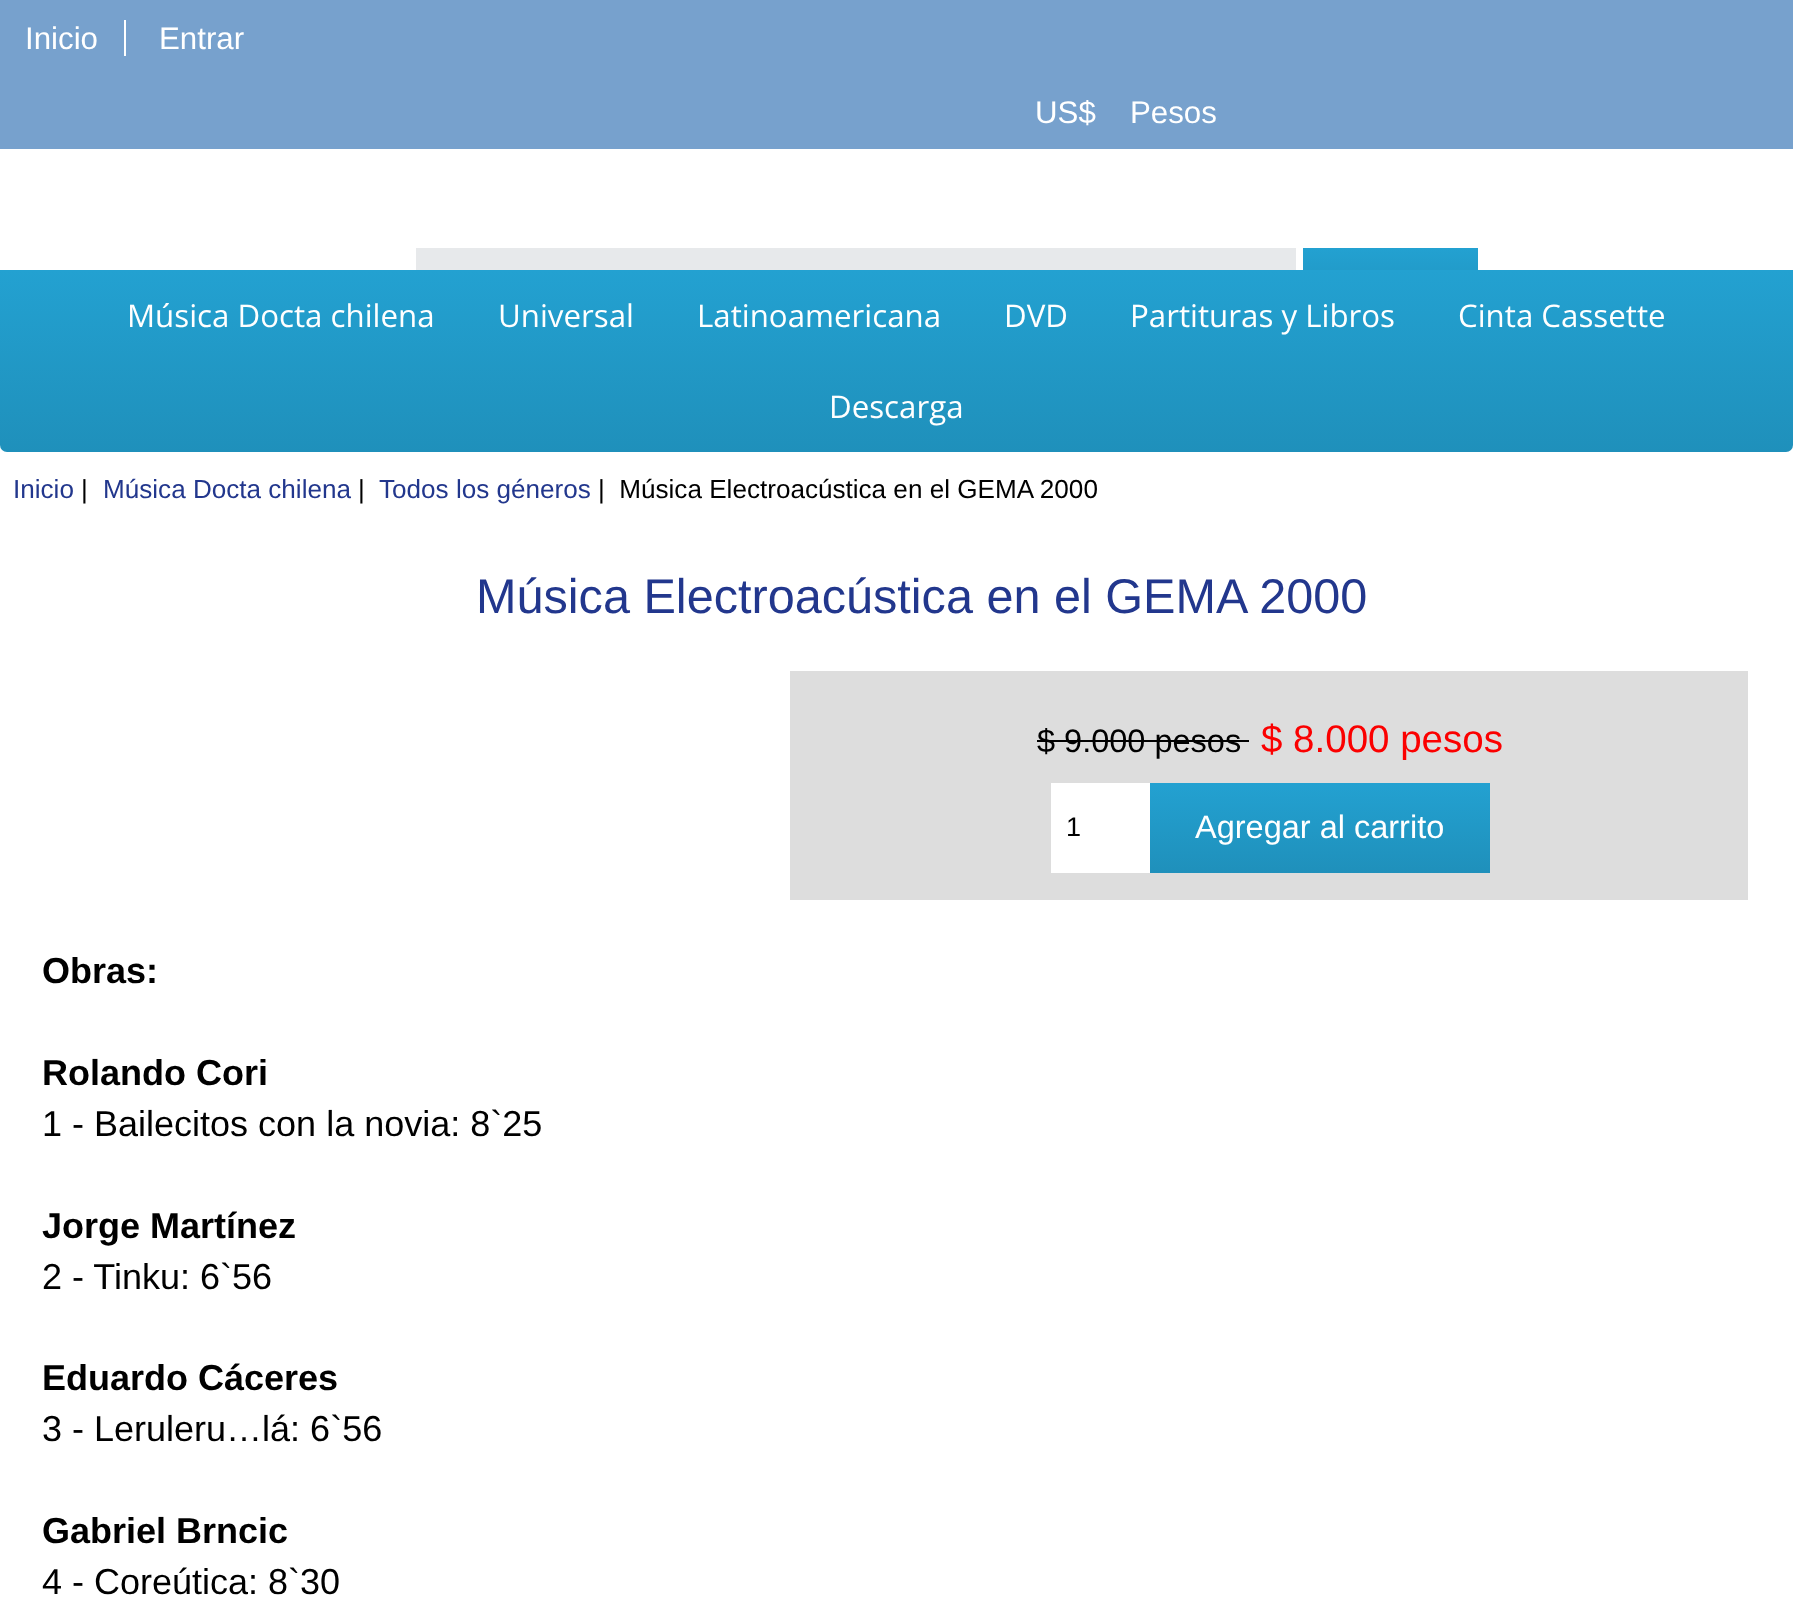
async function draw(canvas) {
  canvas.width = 1793
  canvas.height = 1604
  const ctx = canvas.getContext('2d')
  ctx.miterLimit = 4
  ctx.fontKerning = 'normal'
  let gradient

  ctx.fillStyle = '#fff'
  ctx.fillRect(0, 0, 1793, 1604)
  ctx.fillStyle = '#77a1cd'
  ctx.fillRect(0, 0, 1793, 149)
  ctx.font = '31.25px Liberation Sans'
  ctx.fillStyle = '#fff'
  ctx.fillText('Inicio', 25, 49)
  ctx.fillRect(124, 20, 2, 36)
  ctx.fillText('Entrar', 159, 49)
  ctx.fillText('US$', 1035, 123)
  ctx.fillText('Pesos', 1130, 123)
  ctx.fillStyle = '#e7e9eb'
  ctx.fillRect(416, 248, 880, 22)
  gradient = ctx.createLinearGradient(1391, 248, 1391, 320)
  gradient.addColorStop(0, '#23a1d1')
  gradient.addColorStop(1, '#1f90bb')
  ctx.fillStyle = gradient
  ctx.fillRect(1303, 248, 175, 22)
  gradient = ctx.createLinearGradient(897, 270, 897, 452)
  gradient.addColorStop(0, '#23a1d1')
  gradient.addColorStop(1, '#1f90bb')
  ctx.fillStyle = gradient
  ctx.beginPath()
  ctx.roundRect(0, 270, 1793, 182, [0, 0, 7, 7])
  ctx.fill()
  ctx.font = '31.25px Open Sans'
  ctx.fillStyle = '#fff'
  ctx.fillText('Música Docta chilena', 127, 327)
  ctx.fillText('Universal', 498, 327)
  ctx.fillText('Latinoamericana', 697, 327)
  ctx.fillText('DVD', 1004, 327)
  ctx.fillText('Partituras y Libros', 1130, 327)
  ctx.fillText('Cinta Cassette', 1458, 327)
  ctx.fillText('Descarga', 829, 418)
  ctx.font = '26.1px Liberation Sans'
  ctx.fillStyle = '#22378d'
  ctx.fillText('Inicio', 13, 498)
  ctx.fillStyle = '#000'
  ctx.fillText('|', 81, 498)
  ctx.fillStyle = '#22378d'
  ctx.fillText('Música Docta chilena', 103, 498)
  ctx.fillStyle = '#000'
  ctx.fillText('|', 358, 498)
  ctx.fillStyle = '#22378d'
  ctx.fillText('Todos los géneros', 379, 498)
  ctx.fillStyle = '#000'
  ctx.fillText('|  Música Electroacústica en el GEMA 2000', 598, 498)
  ctx.font = '48.6px Liberation Sans'
  ctx.fillStyle = '#22378d'
  ctx.fillText('Música Electroacústica en el GEMA 2000', 476, 613)
  ctx.fillStyle = '#ddd'
  ctx.fillRect(790, 671, 958, 229)
  ctx.font = '32.5px Liberation Sans'
  ctx.fillStyle = '#000'
  ctx.fillText('$ 9.000 pesos', 1037, 752)
  ctx.fillRect(1037, 740, 212, 2)
  ctx.font = '38.5px Liberation Sans'
  ctx.fillStyle = '#fb0000'
  ctx.fillText('$ 8.000 pesos', 1261, 752)
  ctx.fillStyle = '#fff'
  ctx.fillRect(1051, 783, 99, 90)
  ctx.font = '27px Liberation Sans'
  ctx.fillStyle = '#000'
  ctx.fillText('1', 1066, 836)
  gradient = ctx.createLinearGradient(1320, 783, 1320, 873)
  gradient.addColorStop(0, '#23a1d1')
  gradient.addColorStop(1, '#1f90bb')
  ctx.fillStyle = gradient
  ctx.fillRect(1150, 783, 340, 90)
  ctx.font = '32.5px Liberation Sans'
  ctx.fillStyle = '#fff'
  ctx.fillText('Agregar al carrito', 1195, 838)
  ctx.font = 'bold 36px Liberation Sans'
  ctx.fillStyle = '#000'
  ctx.fillText('Obras:', 42, 983)
  ctx.fillText('Rolando Cori', 42, 1085)
  ctx.font = '36px Liberation Sans'
  ctx.fillText('1 - Bailecitos con la novia: 8`25', 42, 1136)
  ctx.font = 'bold 36px Liberation Sans'
  ctx.fillText('Jorge Martínez', 42, 1238)
  ctx.font = '36px Liberation Sans'
  ctx.fillText('2 - Tinku: 6`56', 42, 1289)
  ctx.font = 'bold 36px Liberation Sans'
  ctx.fillText('Eduardo Cáceres', 42, 1390)
  ctx.font = '36px Liberation Sans'
  ctx.fillText('3 - Leruleru…lá: 6`56', 42, 1441)
  ctx.font = 'bold 36px Liberation Sans'
  ctx.fillText('Gabriel Brncic', 42, 1543)
  ctx.font = '36px Liberation Sans'
  ctx.fillText('4 - Coreútica: 8`30', 42, 1594)
}

draw(document.querySelector('canvas'))
